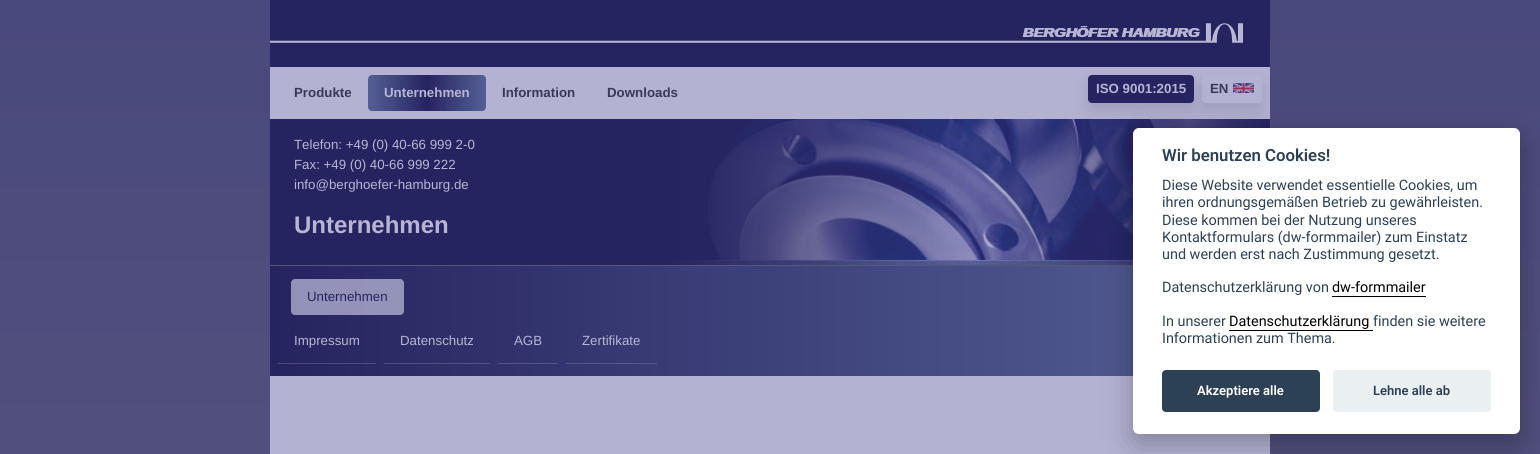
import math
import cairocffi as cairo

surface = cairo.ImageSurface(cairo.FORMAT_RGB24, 1540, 454)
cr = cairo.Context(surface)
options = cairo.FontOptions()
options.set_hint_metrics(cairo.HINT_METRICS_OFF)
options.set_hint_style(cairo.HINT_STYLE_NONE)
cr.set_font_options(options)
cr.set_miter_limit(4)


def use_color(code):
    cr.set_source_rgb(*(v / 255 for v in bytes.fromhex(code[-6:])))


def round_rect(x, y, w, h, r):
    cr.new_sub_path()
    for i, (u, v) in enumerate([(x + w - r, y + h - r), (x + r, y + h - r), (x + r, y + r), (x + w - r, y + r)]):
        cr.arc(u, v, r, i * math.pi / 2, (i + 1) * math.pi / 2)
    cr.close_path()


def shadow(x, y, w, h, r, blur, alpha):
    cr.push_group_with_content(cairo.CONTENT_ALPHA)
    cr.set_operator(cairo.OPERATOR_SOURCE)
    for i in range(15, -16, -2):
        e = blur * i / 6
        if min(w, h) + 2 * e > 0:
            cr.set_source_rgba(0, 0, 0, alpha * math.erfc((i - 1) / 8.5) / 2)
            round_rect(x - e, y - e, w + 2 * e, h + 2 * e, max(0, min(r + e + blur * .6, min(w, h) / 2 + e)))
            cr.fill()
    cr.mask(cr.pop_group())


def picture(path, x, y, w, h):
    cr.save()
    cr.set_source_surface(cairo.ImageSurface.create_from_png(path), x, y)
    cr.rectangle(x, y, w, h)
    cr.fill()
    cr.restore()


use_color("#ffffff")
cr.paint()
gradient = cairo.LinearGradient(770, 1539, 770, 0)
gradient.add_color_stop_rgba(0, 0.376, 0.369, 0.49, 1)
gradient.add_color_stop_rgba(1, 0.29, 0.286, 0.49, 1)
cr.set_source(gradient)
cr.rectangle(0, 0, 1540, 454)
cr.fill()
use_color("#b3b2d2")
cr.rectangle(270, 67, 1000, 52)
cr.fill()
use_color("#262460")
cr.rectangle(270, 0, 1000, 67)
cr.fill()
picture("img1.png", 270, 23, 973, 20)
cr.select_font_face("Liberation Sans", cairo.FONT_SLANT_NORMAL, cairo.FONT_WEIGHT_BOLD)
cr.set_font_size(13.3)
use_color("#39395a")
cr.move_to(294, 97)
cr.show_text("Produkte")
gradient = cairo.LinearGradient(368, 93, 486, 93)
gradient.add_color_stop_rgba(0, 0.333, 0.373, 0.588, 1)
gradient.add_color_stop_rgba(0.5, 0.149, 0.141, 0.376, 1)
gradient.add_color_stop_rgba(1, 0.333, 0.373, 0.588, 1)
cr.set_source(gradient)
round_rect(368, 75, 118, 36, 4)
cr.fill()
use_color("#b7b5d4")
cr.move_to(384, 97)
cr.show_text("Unternehmen")
use_color("#39395a")
cr.move_to(502, 97)
cr.show_text("Information")
cr.move_to(607, 97)
cr.show_text("Downloads")
picture("img3.png", 270, 119, 1000, 146)
use_color("#262443")
shadow(1088, 83, 106, 28, 4, 8, 0.15)
use_color("#262460")
round_rect(1088, 75, 106, 28, 4)
cr.fill()
use_color("#b7b5d4")
cr.move_to(1096, 93)
cr.show_text("ISO 9001:2015")
cr.save()
cr.set_fill_rule(cairo.FILL_RULE_EVEN_ODD)
cr.new_path()
cr.move_to(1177, 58)
cr.line_to(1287, 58)
cr.line_to(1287, 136)
cr.line_to(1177, 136)
cr.close_path()
cr.move_to(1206, 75)
cr.line_to(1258, 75)
cr.curve_to(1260, 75, 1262, 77, 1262, 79)
cr.line_to(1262, 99)
cr.curve_to(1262, 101, 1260, 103, 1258, 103)
cr.line_to(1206, 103)
cr.curve_to(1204, 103, 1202, 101, 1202, 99)
cr.line_to(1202, 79)
cr.curve_to(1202, 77, 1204, 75, 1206, 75)
cr.close_path()
cr.clip()
use_color("#262443")
shadow(1202, 83, 60, 28, 4, 8, 0.15)
cr.restore()
use_color("#39395a")
cr.move_to(1210, 93)
cr.show_text("EN")
picture("img2.png", 1233, 83, 21, 10)
cr.select_font_face("Liberation Sans")
use_color("#b7b5d4")
cr.move_to(294, 149)
cr.show_text("Telefon: +49 (0) 40-66 999 2-0")
cr.move_to(294, 169)
cr.show_text("Fax: +49 (0) 40-66 999 222")
cr.move_to(294, 189)
cr.show_text("info@berghoefer-hamburg.de")
cr.select_font_face("Liberation Sans", cairo.FONT_SLANT_NORMAL, cairo.FONT_WEIGHT_BOLD)
cr.set_font_size(24)
cr.move_to(294, 233)
cr.show_text("Unternehmen")
use_color("#575778")
cr.rectangle(270, 265, 863, 1)
cr.fill()
gradient = cairo.LinearGradient(270, 295, 1270, 294)
gradient.add_color_stop_rgba(0, 0.149, 0.141, 0.376, 1)
gradient.add_color_stop_rgba(1, 0.333, 0.373, 0.588, 1)
cr.set_source(gradient)
cr.rectangle(270, 266, 863, 57)
cr.fill()
cr.set_source_rgba(0.718, 0.71, 0.831, 0.75)
round_rect(291, 279, 113, 36, 4)
cr.fill()
cr.select_font_face("Liberation Sans")
cr.set_font_size(13.3)
use_color("#262460")
cr.move_to(307, 301)
cr.show_text("Unternehmen")
gradient = cairo.LinearGradient(270, 350, 1270, 349)
gradient.add_color_stop_rgba(0, 0.149, 0.141, 0.376, 1)
gradient.add_color_stop_rgba(1, 0.333, 0.373, 0.588, 1)
cr.set_source(gradient)
cr.rectangle(270, 323, 863, 53)
cr.fill()
gradient = cairo.LinearGradient(270, 350, 1270, 349)
gradient.add_color_stop_rgba(0, 0.286, 0.278, 0.49, 1)
gradient.add_color_stop_rgba(1, 0.427, 0.455, 0.647, 1)
cr.set_source(gradient)
cr.rectangle(566, 363, 91, 1)
cr.fill()
cr.rectangle(498, 363, 60, 1)
cr.fill()
cr.rectangle(384, 363, 106, 1)
cr.fill()
cr.rectangle(278, 363, 98, 1)
cr.fill()
use_color("#b7b5d4")
cr.move_to(294, 345)
cr.show_text("Impressum")
cr.move_to(400, 345)
cr.show_text("Datenschutz")
cr.move_to(514, 345)
cr.show_text("AGB")
cr.move_to(582, 345)
cr.show_text("Zertifikate")
use_color("#b3b2d2")
cr.rectangle(270, 376, 1000, 78)
cr.fill()
use_color("#020203")
shadow(1133, 138, 387, 306, 6, 15, 0.28)
use_color("#ffffff")
round_rect(1133, 128, 387, 306, 6)
cr.fill()
cr.select_font_face("Roboto SemiBold")
cr.set_font_size(16.75)
use_color("#2d4156")
cr.move_to(1162, 161)
cr.show_text("Wir benutzen Cookies!")
cr.select_font_face("Roboto")
cr.set_font_size(14.4)
cr.move_to(1162, 190)
cr.show_text("Diese Website verwendet essentielle Cookies, um")
cr.move_to(1162, 207)
cr.show_text("ihren ordnungsgemäßen Betrieb zu gewährleisten.")
cr.move_to(1162, 225)
cr.show_text("Diese kommen bei der Nutzung unseres")
cr.move_to(1162, 242)
cr.show_text("Kontaktformulars (dw-formmailer) zum Einstatz")
cr.move_to(1162, 259)
cr.show_text("und werden erst nach Zustimmung gesetzt.")
cr.move_to(1162, 292)
cr.show_text("Datenschutzerklärung von")
use_color("#000000")
cr.move_to(1332, 292)
cr.show_text("dw-formmailer")
cr.rectangle(1332, 296, 94, 1)
cr.fill()
use_color("#2d4156")
cr.move_to(1162, 326)
cr.show_text("In unserer")
use_color("#000000")
cr.move_to(1229, 326)
cr.show_text("Datenschutzerklärung")
cr.rectangle(1229, 330, 144, 1)
cr.fill()
use_color("#2d4156")
cr.move_to(1373, 326)
cr.show_text("finden sie weitere")
cr.move_to(1162, 343)
cr.show_text("Informationen zum Thema.")
round_rect(1162, 370, 158, 42, 4)
cr.fill()
cr.select_font_face("Roboto SemiBold")
cr.set_font_size(13)
use_color("#ffffff")
cr.move_to(1197, 395)
cr.show_text("Akzeptiere alle")
use_color("#eaeff2")
round_rect(1333, 370, 158, 42, 4)
cr.fill()
use_color("#2d4156")
cr.move_to(1373, 395)
cr.show_text("Lehne alle ab")
surface.write_to_png("result.png")
